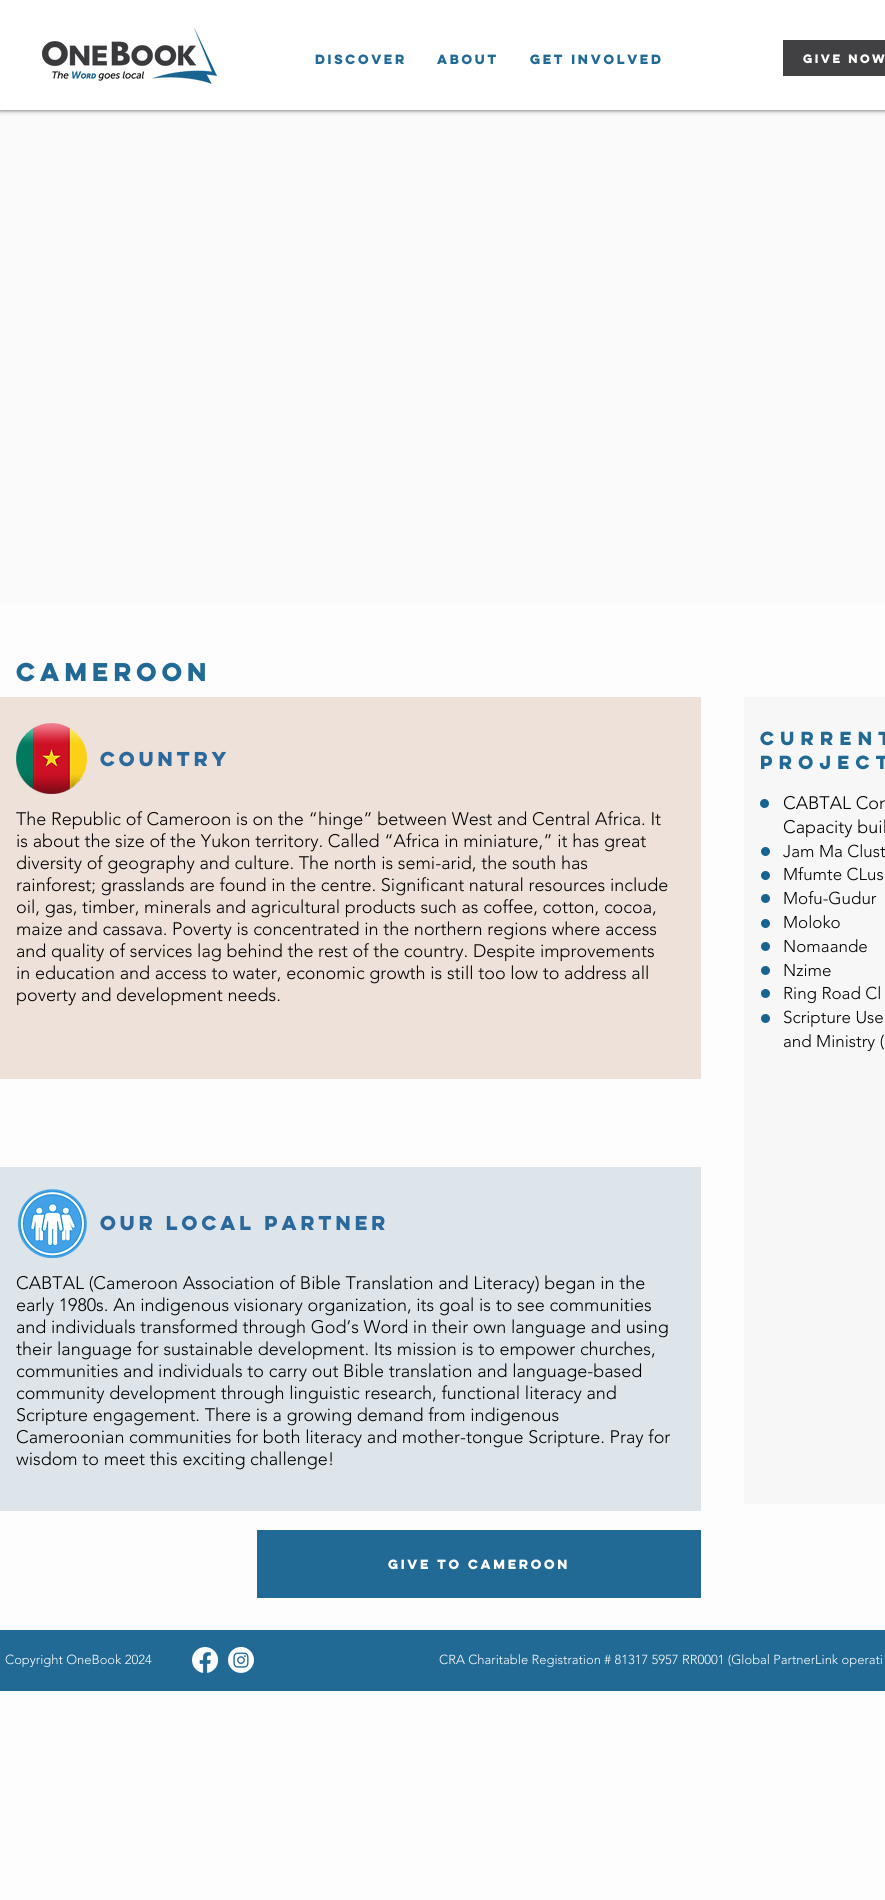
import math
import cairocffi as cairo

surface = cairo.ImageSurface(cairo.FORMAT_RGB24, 885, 1900)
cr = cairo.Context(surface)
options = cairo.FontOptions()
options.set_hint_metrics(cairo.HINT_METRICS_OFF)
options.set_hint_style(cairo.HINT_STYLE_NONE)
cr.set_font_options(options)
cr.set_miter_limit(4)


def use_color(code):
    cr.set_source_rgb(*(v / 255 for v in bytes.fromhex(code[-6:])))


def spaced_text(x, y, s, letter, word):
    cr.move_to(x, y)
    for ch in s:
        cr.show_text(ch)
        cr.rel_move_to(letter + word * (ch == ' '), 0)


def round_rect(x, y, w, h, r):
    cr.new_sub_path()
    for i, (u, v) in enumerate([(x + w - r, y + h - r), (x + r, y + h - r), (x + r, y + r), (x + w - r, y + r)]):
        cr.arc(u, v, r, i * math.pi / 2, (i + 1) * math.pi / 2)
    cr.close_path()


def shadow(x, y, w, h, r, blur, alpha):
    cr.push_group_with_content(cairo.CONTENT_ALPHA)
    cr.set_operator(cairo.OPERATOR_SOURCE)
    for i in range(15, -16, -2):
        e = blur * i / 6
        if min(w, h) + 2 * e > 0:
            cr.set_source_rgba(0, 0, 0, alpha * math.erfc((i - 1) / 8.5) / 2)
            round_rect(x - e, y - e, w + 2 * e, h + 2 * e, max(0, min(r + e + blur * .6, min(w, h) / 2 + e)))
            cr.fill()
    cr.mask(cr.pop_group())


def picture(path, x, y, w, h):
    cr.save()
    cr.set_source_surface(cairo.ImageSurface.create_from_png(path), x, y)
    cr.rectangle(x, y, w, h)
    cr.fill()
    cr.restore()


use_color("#fefdfd")
cr.paint()
use_color("#fafafa")
cr.rectangle(0, 112, 885, 492)
cr.fill()
use_color("#000000")
shadow(0, 0, 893, 110, 0, 2.5, 0.7)
use_color("#ffffff")
cr.rectangle(0, 0, 885, 110)
cr.fill()
picture("img1.png", 42, 28, 175, 56)
cr.select_font_face("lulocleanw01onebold", cairo.FONT_SLANT_NORMAL, cairo.FONT_WEIGHT_BOLD)
cr.set_font_size(12)
use_color("#216a95")
cr.move_to(315, 64)
cr.show_text("Discover")
cr.move_to(437, 64)
cr.show_text("About")
cr.move_to(530, 64)
cr.show_text("Get Involved")
use_color("#414042")
cr.rectangle(783, 40, 102, 36)
cr.fill()
cr.set_font_size(11)
use_color("#ffffff")
cr.move_to(803, 63)
cr.show_text("Give Now")
cr.set_font_size(23)
use_color("#216a95")
cr.move_to(16, 681)
cr.show_text("Cameroon")
use_color("#ede1da")
cr.rectangle(0, 697, 701, 382)
cr.fill()
picture("img2.png", 16, 723, 71, 71)
cr.set_font_size(18)
use_color("#2b689c")
cr.move_to(100, 766)
cr.show_text("Country")
cr.select_font_face("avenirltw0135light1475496 Light")
use_color("#000000")
cr.move_to(16, 825)
cr.show_text("The Republic of Cameroon is on the “hinge” between West and Central Africa. It")
cr.move_to(16, 847)
cr.show_text("is about the size of the Yukon territory. Called “Africa in miniature,” it has great")
cr.move_to(16, 869)
cr.show_text("diversity of geography and culture. The north is semi-arid, the south has")
cr.move_to(16, 891)
cr.show_text("rainforest; grasslands are found in the centre. Significant natural resources include")
cr.move_to(16, 913)
cr.show_text("oil, gas, timber, minerals and agricultural products such as coffee, cotton, cocoa,")
cr.move_to(16, 935)
cr.show_text("maize and cassava. Poverty is concentrated in the northern regions where access")
cr.move_to(16, 957)
cr.show_text("and quality of services lag behind the rest of the country. Despite improvements")
cr.move_to(16, 979)
cr.show_text("in education and access to water, economic growth is still too low to address all")
cr.move_to(16, 1001)
cr.show_text("poverty and development needs.")
use_color("#f8f7f7")
cr.rectangle(744, 697, 141, 807)
cr.fill()
cr.select_font_face("lulocleanw01onebold", cairo.FONT_SLANT_NORMAL, cairo.FONT_WEIGHT_BOLD)
cr.set_font_size(17)
use_color("#216a95")
spaced_text(760, 745, "Current", 2.5, 0)
spaced_text(760, 769, "Project", 2.5, 0)
picture("img3.png", 760, 799, 9, 9)
cr.select_font_face("avenirltw0135light1475496 Light")
cr.set_font_size(18)
use_color("#000000")
cr.move_to(783, 809)
cr.show_text("CABTAL Con")
cr.move_to(783, 833)
cr.show_text("Capacity buil")
cr.set_font_size(17)
cr.move_to(783, 857)
cr.show_text("Jam Ma Clust")
cr.move_to(783, 880)
cr.show_text("Mfumte CLus")
cr.move_to(783, 904)
cr.show_text("Mofu-Gudur")
cr.move_to(783, 928)
cr.show_text("Moloko")
cr.move_to(783, 952)
cr.show_text("Nomaande")
cr.move_to(783, 976)
cr.show_text("Nzime")
cr.move_to(783, 999)
cr.show_text("Ring Road Cl")
cr.move_to(783, 1023)
cr.show_text("Scripture Use")
cr.move_to(783, 1047)
cr.show_text("and Ministry (")
picture("img3.png", 761, 847, 9, 9)
picture("img3.png", 761, 871, 9, 9)
picture("img3.png", 761, 894, 9, 9)
picture("img3.png", 761, 919, 9, 9)
picture("img3.png", 761, 942, 9, 9)
picture("img3.png", 761, 966, 9, 9)
picture("img3.png", 761, 989, 9, 9)
picture("img3.png", 761, 1014, 9, 9)
use_color("#dde5eb")
cr.rectangle(0, 1167, 701, 344)
cr.fill()
picture("img4.png", 17, 1189, 70, 69)
cr.select_font_face("lulocleanw01onebold", cairo.FONT_SLANT_NORMAL, cairo.FONT_WEIGHT_BOLD)
cr.set_font_size(18)
use_color("#2b689c")
cr.move_to(100, 1230)
cr.show_text("Our Local Partner")
cr.select_font_face("avenirltw0135light1475496 Light")
use_color("#000000")
cr.move_to(16, 1289)
cr.show_text("CABTAL (Cameroon Association of Bible Translation and Literacy) began in the")
cr.move_to(16, 1311)
cr.show_text("early 1980s. An indigenous visionary organization, its goal is to see communities")
cr.move_to(16, 1333)
cr.show_text("and individuals transformed through God’s Word in their own language and using")
cr.move_to(16, 1355)
cr.show_text("their language for sustainable development. Its mission is to empower churches,")
cr.move_to(16, 1377)
cr.show_text("communities and individuals to carry out Bible translation and language-based")
cr.move_to(16, 1399)
cr.show_text("community development through linguistic research, functional literacy and")
cr.move_to(16, 1421)
cr.show_text("Scripture engagement. There is a growing demand from indigenous")
cr.move_to(16, 1443)
cr.show_text("Cameroonian communities for both literacy and mother-tongue Scripture. Pray for")
cr.move_to(16, 1465)
cr.show_text("wisdom to meet this exciting challenge!")
use_color("#216a95")
cr.rectangle(257, 1530, 444, 68)
cr.fill()
cr.select_font_face("lulocleanw01onebold", cairo.FONT_SLANT_NORMAL, cairo.FONT_WEIGHT_BOLD)
cr.set_font_size(12)
use_color("#ffffff")
cr.move_to(388, 1569)
cr.show_text("Give to Cameroon")
use_color("#216a95")
cr.rectangle(0, 1630, 885, 61)
cr.fill()
cr.select_font_face("avenirltw0135light1475496 Light")
cr.set_font_size(13)
use_color("#ffffff")
cr.move_to(5, 1664)
cr.show_text("Copyright OneBook 2024                                                                                     CRA Charitable Registration # 81317 5957 RR0001 (Global PartnerLink operati")
picture("img5.png", 192, 1647, 26, 26)
picture("img6.png", 228, 1647, 26, 26)
surface.write_to_png("result.png")
